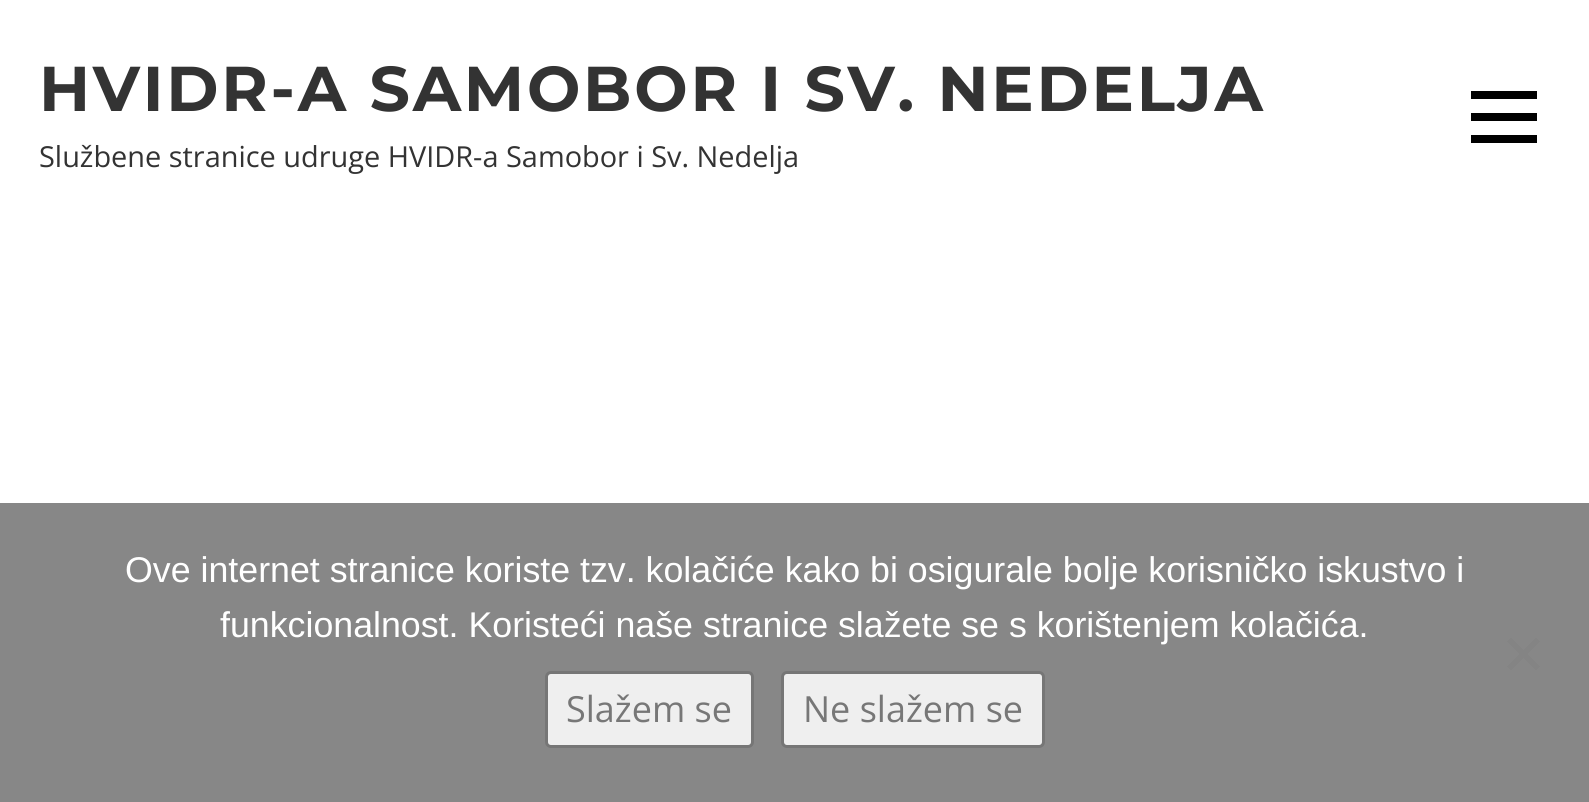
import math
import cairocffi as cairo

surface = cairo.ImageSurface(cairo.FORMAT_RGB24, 1589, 802)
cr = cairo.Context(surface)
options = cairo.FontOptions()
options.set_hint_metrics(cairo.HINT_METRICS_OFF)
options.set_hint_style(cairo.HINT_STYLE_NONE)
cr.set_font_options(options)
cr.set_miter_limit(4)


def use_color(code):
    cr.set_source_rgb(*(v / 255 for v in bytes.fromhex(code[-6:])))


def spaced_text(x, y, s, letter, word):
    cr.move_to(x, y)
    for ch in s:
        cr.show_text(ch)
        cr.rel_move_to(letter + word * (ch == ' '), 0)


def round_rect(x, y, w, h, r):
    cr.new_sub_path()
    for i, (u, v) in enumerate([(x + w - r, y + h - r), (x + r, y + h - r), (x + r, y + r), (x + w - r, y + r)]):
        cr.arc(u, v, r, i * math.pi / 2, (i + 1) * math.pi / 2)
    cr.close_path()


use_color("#ffffff")
cr.paint()
cr.select_font_face("Montserrat", cairo.FONT_SLANT_NORMAL, cairo.FONT_WEIGHT_BOLD)
cr.set_font_size(63.25)
use_color("#333333")
spaced_text(39, 111, "HVIDR-A SAMOBOR I SV. NEDELJA", 2.75, 0)
cr.select_font_face("Open Sans")
cr.set_font_size(28.9)
cr.move_to(39, 167)
cr.show_text("Službene stranice udruge HVIDR-a Samobor i Sv. Nedelja")
use_color("#000000")
cr.rectangle(1471, 113, 66, 8)
cr.fill()
cr.rectangle(1471, 91, 66, 8)
cr.fill()
cr.rectangle(1471, 135, 66, 8)
cr.fill()
use_color("#878787")
cr.rectangle(0, 503, 1589, 299)
cr.fill()
cr.select_font_face("Liberation Sans")
cr.set_font_size(35.75)
use_color("#ffffff")
cr.move_to(125, 582)
cr.show_text("Ove internet stranice koriste tzv. kolačiće kako bi osigurale bolje korisničko iskustvo i")
cr.move_to(220, 637)
cr.show_text("funkcionalnost. Koristeći naše stranice slažete se s korištenjem kolačića.")
use_color("#848484")
cr.new_path()
cr.move_to(1536, 637.5)
cr.line_to(1540, 641.5)
cr.line_to(1511, 670.5)
cr.line_to(1507, 666.5)
cr.close_path()
cr.fill()
cr.new_path()
cr.move_to(1507, 641.5)
cr.line_to(1511, 637.5)
cr.line_to(1540, 666.5)
cr.line_to(1536, 670.5)
cr.close_path()
cr.fill()
use_color("#efefef")
round_rect(546.5, 672.5, 206, 74, 4.5)
cr.fill_preserve()
use_color("#767676")
cr.set_line_width(3)
cr.stroke()
cr.select_font_face("Open Sans")
cr.set_font_size(36)
use_color("#777777")
cr.move_to(566, 722)
cr.show_text("Slažem se")
use_color("#efefef")
round_rect(782.5, 672.5, 261, 74, 4.5)
cr.fill_preserve()
use_color("#767676")
cr.stroke()
use_color("#777777")
cr.move_to(803, 722)
cr.show_text("Ne slažem se")
surface.write_to_png("result.png")
